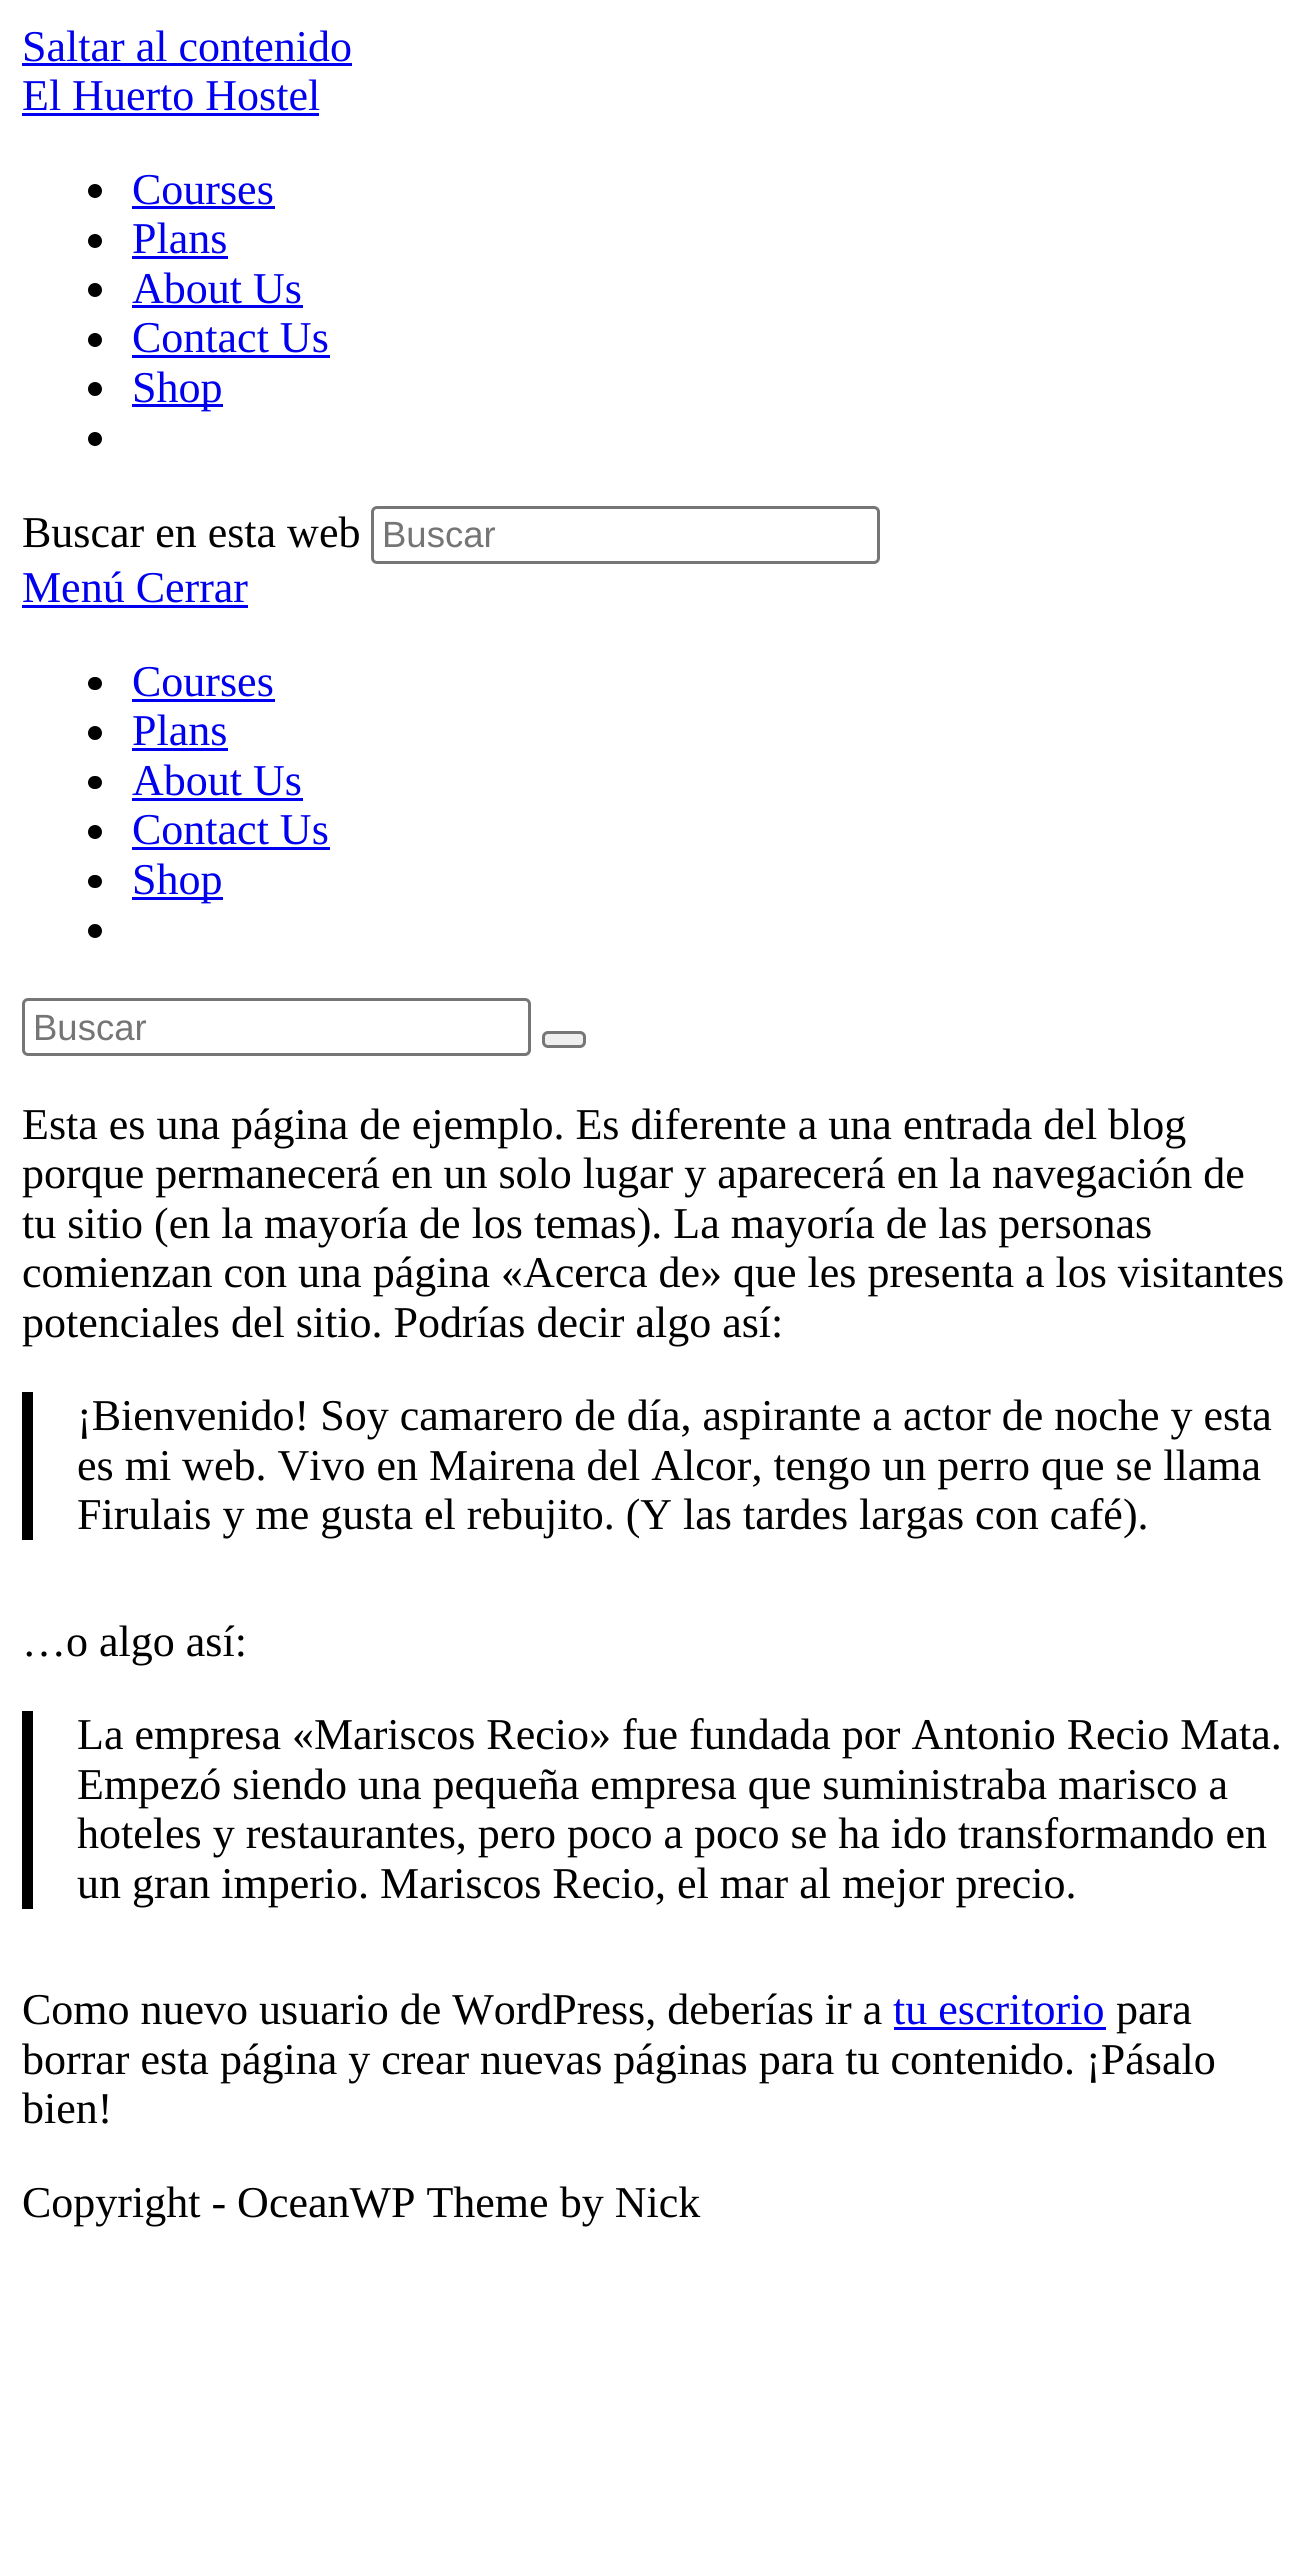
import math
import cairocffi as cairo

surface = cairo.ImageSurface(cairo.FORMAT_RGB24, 1305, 2549)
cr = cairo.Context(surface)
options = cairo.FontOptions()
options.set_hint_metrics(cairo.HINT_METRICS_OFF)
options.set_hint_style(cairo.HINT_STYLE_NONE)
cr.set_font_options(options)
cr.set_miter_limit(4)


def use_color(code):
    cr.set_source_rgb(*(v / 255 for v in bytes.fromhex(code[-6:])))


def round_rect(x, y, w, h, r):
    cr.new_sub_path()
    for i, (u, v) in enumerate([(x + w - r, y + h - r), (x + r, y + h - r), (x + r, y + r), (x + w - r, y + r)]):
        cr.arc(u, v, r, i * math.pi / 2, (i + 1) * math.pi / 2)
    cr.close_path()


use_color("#ffffff")
cr.paint()
cr.select_font_face("Liberation Serif")
cr.set_font_size(44)
use_color("#0000ee")
cr.move_to(22, 61)
cr.show_text("Saltar al contenido")
cr.rectangle(22, 63, 330, 3)
cr.fill()
cr.move_to(22, 110)
cr.show_text("El Huerto Hostel")
cr.rectangle(22, 113, 297, 3)
cr.fill()
use_color("#000000")
cr.arc(95, 191, 7, 0, 2 * math.pi)
cr.fill()
use_color("#0000ee")
cr.move_to(132, 204)
cr.show_text("Courses")
cr.rectangle(132, 206, 143, 3)
cr.fill()
use_color("#000000")
cr.arc(95, 241, 7, 0, 2 * math.pi)
cr.fill()
use_color("#0000ee")
cr.move_to(132, 253)
cr.show_text("Plans")
cr.rectangle(132, 256, 96, 3)
cr.fill()
use_color("#000000")
cr.arc(95, 290, 7, 0, 2 * math.pi)
cr.fill()
use_color("#0000ee")
cr.move_to(132, 303)
cr.show_text("About Us")
cr.rectangle(132, 305, 171, 3)
cr.fill()
use_color("#000000")
cr.arc(95, 340, 7, 0, 2 * math.pi)
cr.fill()
use_color("#0000ee")
cr.move_to(132, 352)
cr.show_text("Contact Us")
cr.rectangle(132, 355, 198, 3)
cr.fill()
use_color("#000000")
cr.arc(95, 389, 7, 0, 2 * math.pi)
cr.fill()
use_color("#0000ee")
cr.rectangle(132, 404, 91, 3)
cr.fill()
cr.move_to(132, 402)
cr.show_text("Shop")
use_color("#000000")
cr.new_path()
cr.arc(95, 439, 7, 0, 2 * math.pi)
cr.fill()
cr.move_to(22, 547)
cr.show_text("Buscar en esta web")
round_rect(372.5, 507.5, 506, 55, 4.5)
use_color("#767676")
cr.set_line_width(3)
cr.stroke()
cr.select_font_face("Liberation Sans")
cr.set_font_size(36.5)
use_color("#757575")
cr.move_to(382, 547)
cr.show_text("Buscar")
cr.select_font_face("Liberation Serif")
cr.set_font_size(44)
use_color("#0000ee")
cr.move_to(22, 602)
cr.show_text("Menú Cerrar")
cr.rectangle(22, 605, 226, 3)
cr.fill()
use_color("#000000")
round_rect(88, 677, 14, 13, 6.5)
cr.fill()
use_color("#0000ee")
cr.move_to(132, 696)
cr.show_text("Courses")
cr.rectangle(132, 699, 143, 3)
cr.fill()
use_color("#000000")
cr.arc(95, 733, 7, 0, 2 * math.pi)
cr.fill()
use_color("#0000ee")
cr.move_to(132, 745)
cr.show_text("Plans")
cr.rectangle(132, 748, 96, 3)
cr.fill()
use_color("#000000")
round_rect(88, 776, 14, 13, 6.5)
cr.fill()
use_color("#0000ee")
cr.move_to(132, 795)
cr.show_text("About Us")
cr.rectangle(132, 798, 171, 3)
cr.fill()
use_color("#000000")
cr.arc(95, 832, 7, 0, 2 * math.pi)
cr.fill()
use_color("#0000ee")
cr.move_to(132, 844)
cr.show_text("Contact Us")
cr.rectangle(132, 847, 198, 3)
cr.fill()
use_color("#000000")
round_rect(88, 875, 14, 13, 6.5)
cr.fill()
use_color("#0000ee")
cr.rectangle(132, 897, 91, 3)
cr.fill()
cr.move_to(132, 894)
cr.show_text("Shop")
use_color("#000000")
cr.new_path()
cr.arc(95, 931, 7, 0, 2 * math.pi)
cr.fill()
round_rect(23.5, 999.5, 506, 55, 4.5)
use_color("#767676")
cr.stroke()
cr.select_font_face("Liberation Sans")
cr.set_font_size(36.5)
use_color("#757575")
cr.move_to(33, 1040)
cr.show_text("Buscar")
use_color("#efefef")
round_rect(543.5, 1032.5, 41, 14, 4.5)
cr.fill_preserve()
use_color("#767676")
cr.stroke()
cr.select_font_face("Liberation Serif")
cr.set_font_size(44)
use_color("#000000")
cr.move_to(22, 1139)
cr.show_text("Esta es una página de ejemplo. Es diferente a una entrada del blog")
cr.move_to(22, 1188)
cr.show_text("porque permanecerá en un solo lugar y aparecerá en la navegación de")
cr.move_to(22, 1238)
cr.show_text("tu sitio (en la mayoría de los temas). La mayoría de las personas")
cr.move_to(22, 1287)
cr.show_text("comienzan con una página «Acerca de» que les presenta a los visitantes")
cr.move_to(22, 1337)
cr.show_text("potenciales del sitio. Podrías decir algo así:")
cr.rectangle(22, 1392, 11, 148)
cr.fill()
cr.move_to(77, 1430)
cr.show_text("¡Bienvenido! Soy camarero de día, aspirante a actor de noche y esta")
cr.move_to(77, 1480)
cr.show_text("es mi web. Vivo en Mairena del Alcor, tengo un perro que se llama")
cr.move_to(77, 1529)
cr.show_text("Firulais y me gusta el rebujito. (Y las tardes largas con café).")
cr.move_to(22, 1656)
cr.show_text("…o algo así:")
cr.rectangle(22, 1711, 11, 198)
cr.fill()
cr.move_to(77, 1749)
cr.show_text("La empresa «Mariscos Recio» fue fundada por Antonio Recio Mata.")
cr.move_to(77, 1799)
cr.show_text("Empezó siendo una pequeña empresa que suministraba marisco a")
cr.move_to(77, 1848)
cr.show_text("hoteles y restaurantes, pero poco a poco se ha ido transformando en")
cr.move_to(77, 1898)
cr.show_text("un gran imperio. Mariscos Recio, el mar al mejor precio.")
cr.move_to(22, 2024)
cr.show_text("Como nuevo usuario de WordPress, deberías ir a")
use_color("#0000ee")
cr.move_to(893, 2024)
cr.show_text("tu escritorio")
cr.rectangle(894, 2027, 212, 3)
cr.fill()
use_color("#000000")
cr.move_to(1116, 2024)
cr.show_text("para")
cr.move_to(22, 2074)
cr.show_text("borrar esta página y crear nuevas páginas para tu contenido. ¡Pásalo")
cr.move_to(22, 2123)
cr.show_text("bien!")
cr.move_to(22, 2217)
cr.show_text("Copyright - OceanWP Theme by Nick")
surface.write_to_png("result.png")
